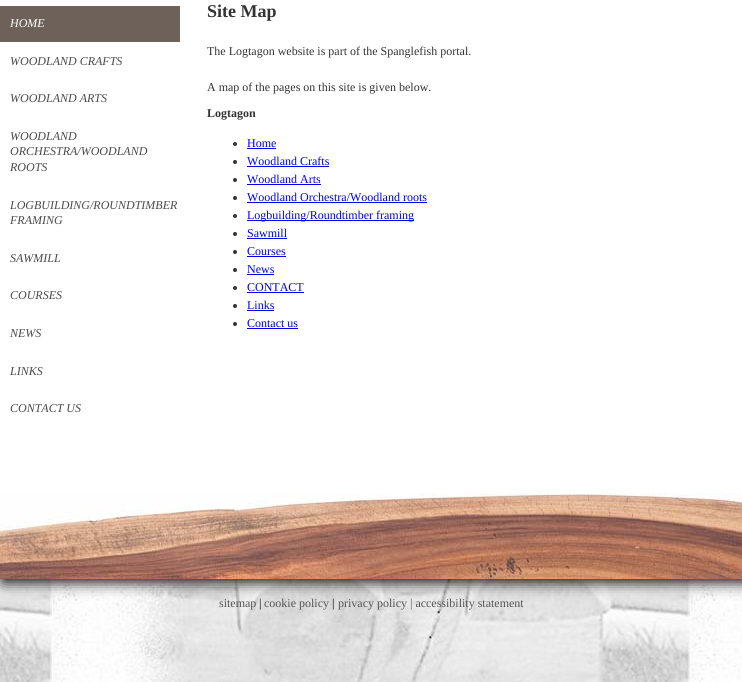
import math
import cairocffi as cairo

surface = cairo.ImageSurface(cairo.FORMAT_RGB24, 742, 682)
cr = cairo.Context(surface)
options = cairo.FontOptions()
options.set_hint_metrics(cairo.HINT_METRICS_OFF)
options.set_hint_style(cairo.HINT_STYLE_NONE)
cr.set_font_options(options)
cr.set_miter_limit(4)


def use_color(code):
    cr.set_source_rgb(*(v / 255 for v in bytes.fromhex(code[-6:])))


def round_rect(x, y, w, h, r):
    cr.new_sub_path()
    for i, (u, v) in enumerate([(x + w - r, y + h - r), (x + r, y + h - r), (x + r, y + r), (x + w - r, y + r)]):
        cr.arc(u, v, r, i * math.pi / 2, (i + 1) * math.pi / 2)
    cr.close_path()


def shadow(x, y, w, h, r, blur, alpha):
    cr.push_group_with_content(cairo.CONTENT_ALPHA)
    cr.set_operator(cairo.OPERATOR_SOURCE)
    for i in range(15, -16, -2):
        e = blur * i / 6
        if min(w, h) + 2 * e > 0:
            cr.set_source_rgba(0, 0, 0, alpha * math.erfc((i - 1) / 8.5) / 2)
            round_rect(x - e, y - e, w + 2 * e, h + 2 * e, max(0, min(r + e + blur * .6, min(w, h) / 2 + e)))
            cr.fill()
    cr.mask(cr.pop_group())


def picture(path, x, y, w, h):
    cr.save()
    cr.set_source_surface(cairo.ImageSurface.create_from_png(path), x, y)
    cr.rectangle(x, y, w, h)
    cr.fill()
    cr.restore()


use_color("#ffffff")
cr.paint()
picture("img1.png", 0, 579, 742, 103)
use_color("#000000")
shadow(3, -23, 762, 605, 0, 7.5, 1)
use_color("#ffffff")
cr.rectangle(0, 0, 742, 493)
cr.fill()
use_color("#6d615a")
cr.rectangle(0, 6, 180, 36)
cr.fill()
cr.select_font_face("Liberation Serif", cairo.FONT_SLANT_ITALIC)
cr.set_font_size(12)
use_color("#ffffff")
cr.move_to(10, 27)
cr.show_text("HOME")
use_color("#4a4a4a")
cr.move_to(10, 65)
cr.show_text("WOODLAND CRAFTS")
cr.move_to(10, 102)
cr.show_text("WOODLAND ARTS")
cr.move_to(10, 140)
cr.show_text("WOODLAND")
cr.move_to(10, 155)
cr.show_text("ORCHESTRA/WOODLAND")
cr.move_to(10, 171)
cr.show_text("ROOTS")
cr.move_to(10, 209)
cr.show_text("LOGBUILDING/ROUNDTIMBER")
cr.move_to(10, 224)
cr.show_text("FRAMING")
cr.move_to(10, 262)
cr.show_text("SAWMILL")
cr.move_to(10, 299)
cr.show_text("COURSES")
cr.move_to(10, 337)
cr.show_text("NEWS")
cr.move_to(10, 375)
cr.show_text("LINKS")
cr.move_to(10, 412)
cr.show_text("CONTACT US")
cr.select_font_face("Liberation Serif", cairo.FONT_SLANT_NORMAL, cairo.FONT_WEIGHT_BOLD)
cr.set_font_size(18)
use_color("#333333")
cr.move_to(207, 17)
cr.show_text("Site Map")
cr.select_font_face("Liberation Serif")
cr.set_font_size(12)
cr.move_to(207, 55)
cr.show_text("The Logtagon website is part of the Spanglefish portal.")
cr.move_to(207, 91)
cr.show_text("A map of the pages on this site is given below.")
cr.select_font_face("Liberation Serif", cairo.FONT_SLANT_NORMAL, cairo.FONT_WEIGHT_BOLD)
cr.move_to(207, 117)
cr.show_text("Logtagon")
cr.new_path()
cr.arc(235, 144, 2, 0, 2 * math.pi)
cr.fill()
cr.select_font_face("Liberation Serif")
use_color("#0000ee")
cr.move_to(247, 147)
cr.show_text("Home")
cr.rectangle(247, 148, 29, 1)
cr.fill()
use_color("#333333")
cr.arc(235, 162, 2, 0, 2 * math.pi)
cr.fill()
use_color("#0000ee")
cr.move_to(247, 165)
cr.show_text("Woodland Crafts")
cr.rectangle(247, 166, 82, 1)
cr.fill()
use_color("#333333")
cr.arc(235, 180, 2, 0, 2 * math.pi)
cr.fill()
use_color("#0000ee")
cr.move_to(247, 183)
cr.show_text("Woodland Arts")
cr.rectangle(247, 184, 74, 1)
cr.fill()
use_color("#333333")
cr.arc(235, 198, 2, 0, 2 * math.pi)
cr.fill()
use_color("#0000ee")
cr.move_to(247, 201)
cr.show_text("Woodland Orchestra/Woodland roots")
cr.rectangle(247, 202, 180, 1)
cr.fill()
use_color("#333333")
cr.arc(235, 216, 2, 0, 2 * math.pi)
cr.fill()
use_color("#0000ee")
cr.rectangle(247, 220, 167, 1)
cr.fill()
cr.move_to(247, 219)
cr.show_text("Logbuilding/Roundtimber framing")
use_color("#333333")
cr.new_path()
cr.arc(235, 234, 2, 0, 2 * math.pi)
cr.fill()
use_color("#0000ee")
cr.move_to(247, 237)
cr.show_text("Sawmill")
cr.rectangle(247, 238, 40, 1)
cr.fill()
use_color("#333333")
cr.arc(235, 252, 2, 0, 2 * math.pi)
cr.fill()
use_color("#0000ee")
cr.move_to(247, 255)
cr.show_text("Courses")
cr.rectangle(247, 256, 39, 1)
cr.fill()
use_color("#333333")
cr.arc(235, 270, 2, 0, 2 * math.pi)
cr.fill()
use_color("#0000ee")
cr.move_to(247, 273)
cr.show_text("News")
cr.rectangle(247, 274, 27, 1)
cr.fill()
use_color("#333333")
cr.arc(235, 288, 2, 0, 2 * math.pi)
cr.fill()
use_color("#0000ee")
cr.move_to(247, 291)
cr.show_text("CONTACT")
cr.rectangle(247, 292, 57, 1)
cr.fill()
use_color("#333333")
cr.arc(235, 306, 2, 0, 2 * math.pi)
cr.fill()
use_color("#0000ee")
cr.move_to(247, 309)
cr.show_text("Links")
cr.rectangle(247, 310, 27, 1)
cr.fill()
use_color("#333333")
cr.arc(235, 324, 2, 0, 2 * math.pi)
cr.fill()
use_color("#0000ee")
cr.move_to(247, 327)
cr.show_text("Contact us")
cr.rectangle(247, 328, 51, 1)
cr.fill()
picture("img2.png", 0, 493, 742, 86)
use_color("#555555")
cr.move_to(219, 607)
cr.show_text("sitemap")
use_color("#000000")
cr.move_to(259, 607)
cr.show_text("|")
use_color("#555555")
cr.move_to(264, 607)
cr.show_text("cookie policy")
use_color("#000000")
cr.move_to(332, 607)
cr.show_text("|")
use_color("#555555")
cr.move_to(338, 607)
cr.show_text("privacy policy | accessibility statement")
surface.write_to_png("result.png")
